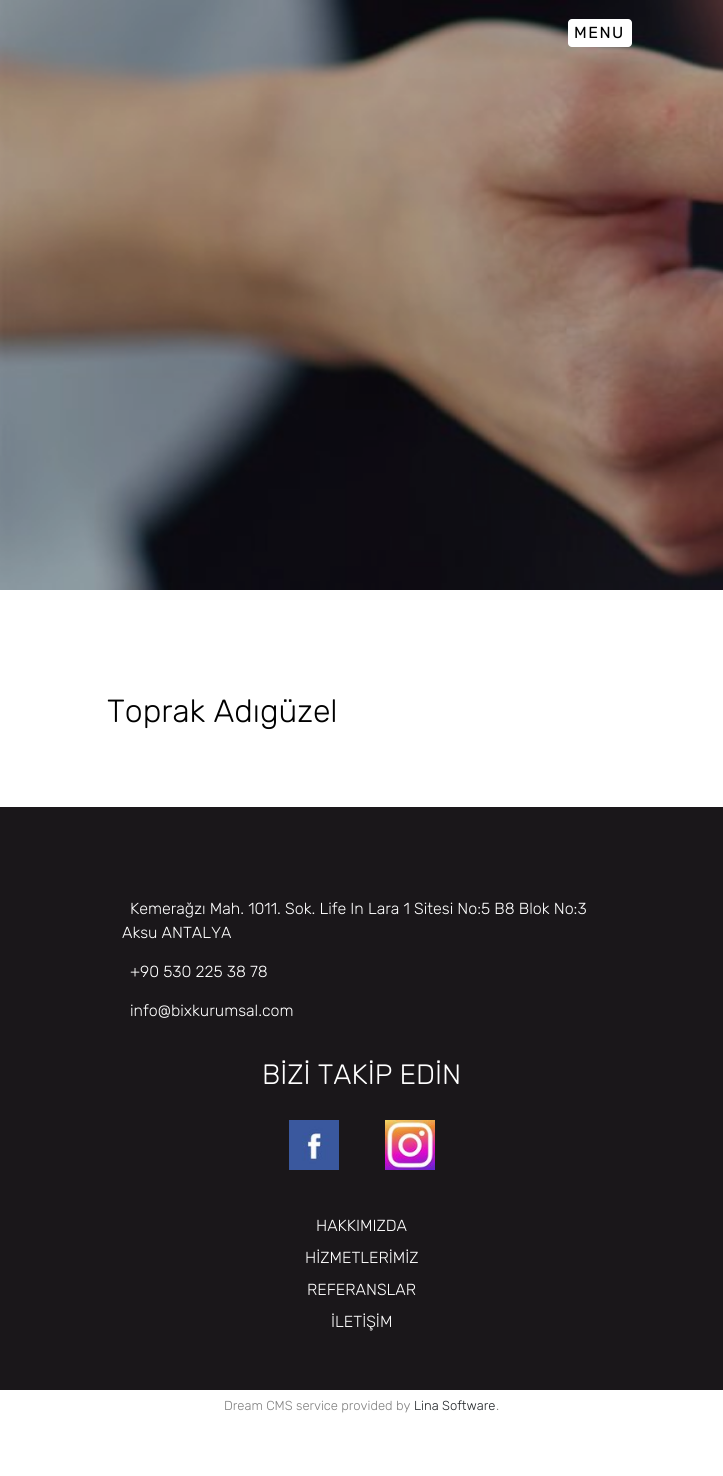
import math
import cairocffi as cairo

surface = cairo.ImageSurface(cairo.FORMAT_RGB24, 723, 1476)
cr = cairo.Context(surface)
options = cairo.FontOptions()
options.set_hint_metrics(cairo.HINT_METRICS_OFF)
options.set_hint_style(cairo.HINT_STYLE_NONE)
cr.set_font_options(options)
cr.set_miter_limit(4)


def use_color(code):
    cr.set_source_rgb(*(v / 255 for v in bytes.fromhex(code[-6:])))


def spaced_text(x, y, s, letter, word):
    cr.move_to(x, y)
    for ch in s:
        cr.show_text(ch)
        cr.rel_move_to(letter + word * (ch == ' '), 0)


def round_rect(x, y, w, h, r):
    cr.new_sub_path()
    for i, (u, v) in enumerate([(x + w - r, y + h - r), (x + r, y + h - r), (x + r, y + r), (x + w - r, y + r)]):
        cr.arc(u, v, r, i * math.pi / 2, (i + 1) * math.pi / 2)
    cr.close_path()


def picture(path, x, y, w, h):
    cr.save()
    cr.set_source_surface(cairo.ImageSurface.create_from_png(path), x, y)
    cr.rectangle(x, y, w, h)
    cr.fill()
    cr.restore()


use_color("#ffffff")
cr.paint()
picture("img1.png", 0, 0, 723, 590)
use_color("#ffffff")
round_rect(568, 19, 64, 28, 4)
cr.fill()
cr.select_font_face("Rubik")
cr.set_font_size(16)
use_color("#000000")
spaced_text(574, 38, "MENU", 1.5, 0)
cr.select_font_face("Rubik Light")
cr.set_font_size(32)
cr.move_to(107, 722)
cr.show_text("Toprak Adıgüzel")
use_color("#1a171a")
cr.rectangle(0, 807, 723, 583)
cr.fill()
cr.set_font_size(16)
use_color("#ffffff")
cr.move_to(130, 914)
cr.show_text("Kemerağzı Mah. 1011. Sok. Life In Lara 1 Sitesi No:5 B8 Blok No:3")
cr.move_to(122, 938)
cr.show_text("Aksu ANTALYA")
cr.move_to(130, 977)
cr.show_text("+90 530 225 38 78")
cr.move_to(130, 1016)
cr.show_text("info@bixkurumsal.com")
cr.set_font_size(28)
cr.move_to(262, 1084)
cr.show_text("BİZİ TAKİP EDİN")
picture("img2.png", 289, 1120, 50, 50)
picture("img3.png", 385, 1120, 50, 50)
cr.set_font_size(16)
cr.move_to(316, 1231)
cr.show_text("HAKKIMIZDA")
cr.move_to(305, 1263)
cr.show_text("HİZMETLERİMİZ")
cr.move_to(307, 1295)
cr.show_text("REFERANSLAR")
cr.move_to(331, 1327)
cr.show_text("İLETİŞİM")
cr.set_font_size(13)
use_color("#808080")
cr.move_to(224, 1410)
cr.show_text("Dream CMS service provided by")
use_color("#212529")
cr.move_to(414, 1410)
cr.show_text("Lina Software")
use_color("#808080")
cr.move_to(496, 1410)
cr.show_text(".")
surface.write_to_png("result.png")
